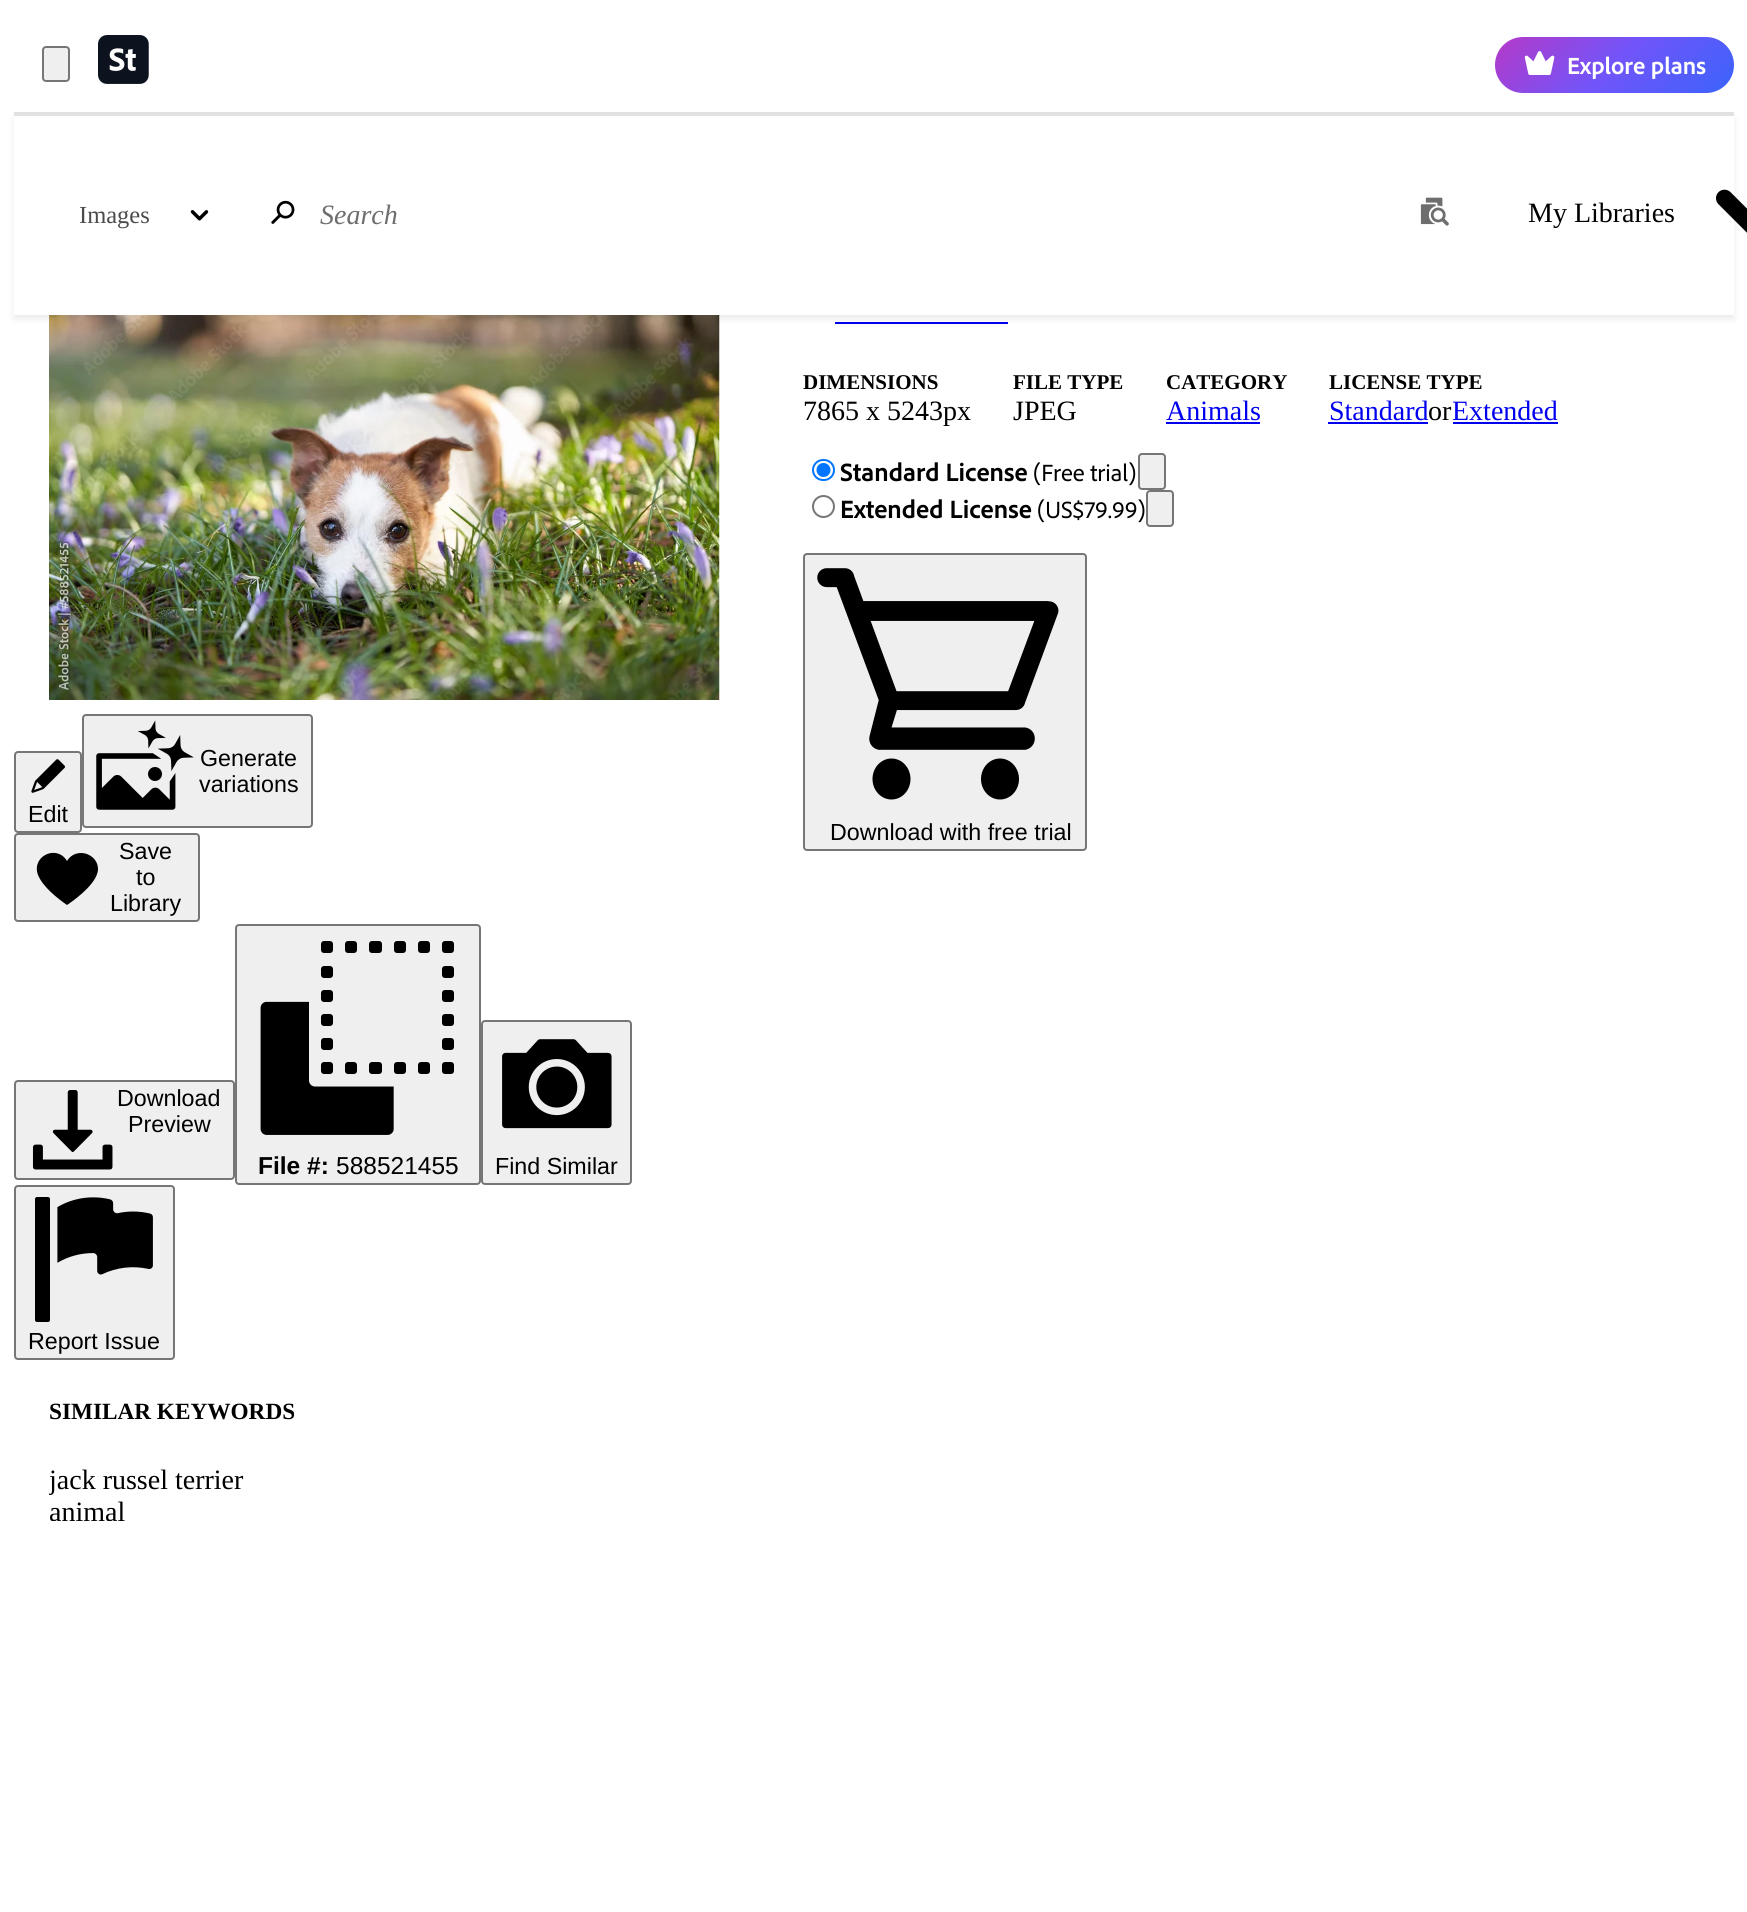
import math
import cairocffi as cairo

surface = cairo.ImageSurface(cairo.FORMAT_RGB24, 1747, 1912)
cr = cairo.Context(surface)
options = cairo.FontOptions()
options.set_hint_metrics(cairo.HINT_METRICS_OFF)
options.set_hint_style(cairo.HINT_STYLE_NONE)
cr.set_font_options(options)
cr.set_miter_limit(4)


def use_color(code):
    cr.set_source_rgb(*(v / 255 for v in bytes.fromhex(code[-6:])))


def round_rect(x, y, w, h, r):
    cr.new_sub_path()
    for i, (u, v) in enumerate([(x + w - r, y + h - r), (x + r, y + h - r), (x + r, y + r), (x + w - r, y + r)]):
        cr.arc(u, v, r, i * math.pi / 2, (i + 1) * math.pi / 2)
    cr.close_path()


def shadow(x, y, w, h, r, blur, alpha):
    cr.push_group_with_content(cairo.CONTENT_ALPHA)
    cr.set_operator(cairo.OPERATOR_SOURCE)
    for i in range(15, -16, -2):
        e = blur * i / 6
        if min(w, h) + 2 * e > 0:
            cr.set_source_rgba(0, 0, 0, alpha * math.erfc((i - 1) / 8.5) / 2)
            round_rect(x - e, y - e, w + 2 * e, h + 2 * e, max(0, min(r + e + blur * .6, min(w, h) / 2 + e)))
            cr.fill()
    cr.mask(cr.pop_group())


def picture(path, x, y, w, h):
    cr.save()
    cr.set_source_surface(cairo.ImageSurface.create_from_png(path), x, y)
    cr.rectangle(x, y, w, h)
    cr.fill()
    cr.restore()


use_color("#ffffff")
cr.paint()
use_color("#0000ee")
cr.rectangle(835, 322, 173, 2)
cr.fill()
picture("img8.png", 49, 315, 671, 385)
use_color("#343434")
shadow(14, 119, 1720, 200, 0, 3.5, 0.1)
use_color("#e1e1e1")
cr.rectangle(14, 112, 1720, 4)
cr.fill()
use_color("#efefef")
round_rect(43, 47, 26, 34, 3)
cr.fill_preserve()
use_color("#767676")
cr.stroke()
picture("img1.png", 98, 35, 51, 49)
gradient = cairo.LinearGradient(1540, -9, 1688, 139)
gradient.add_color_stop_rgba(0, 0.71, 0.224, 0.784, 1)
gradient.add_color_stop_rgba(0.5, 0.443, 0.333, 0.98, 1)
gradient.add_color_stop_rgba(1, 0.231, 0.388, 0.984, 1)
cr.set_source(gradient)
round_rect(1495, 37, 239, 56, 28)
cr.fill()
picture("img2.png", 1524, 51, 31, 24)
cr.select_font_face("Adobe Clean", cairo.FONT_SLANT_NORMAL, cairo.FONT_WEIGHT_BOLD)
cr.set_font_size(24.5)
use_color("#ffffff")
cr.move_to(1567, 74)
cr.show_text("Explore plans")
cr.rectangle(14, 116, 1720, 199)
cr.fill()
cr.select_font_face("Liberation Serif")
use_color("#4b4b4b")
cr.move_to(79, 223)
cr.show_text("Images")
picture("img3.png", 190, 210, 19, 11)
picture("img4.png", 271, 200, 24, 24)
cr.select_font_face("Liberation Serif", cairo.FONT_SLANT_ITALIC)
cr.set_font_size(28)
use_color("#6e6e6e")
cr.move_to(320, 224)
cr.show_text("Search")
picture("img5.png", 1420, 197, 29, 29)
cr.select_font_face("Liberation Serif")
use_color("#000000")
cr.move_to(1528, 222)
cr.show_text("My Libraries")
picture("img6.png", 1716, 189, 31, 44)
cr.select_font_face("Liberation Serif", cairo.FONT_SLANT_NORMAL, cairo.FONT_WEIGHT_BOLD)
cr.set_font_size(21)
cr.move_to(803, 389)
cr.show_text("DIMENSIONS")
cr.select_font_face("Liberation Serif")
cr.set_font_size(28)
cr.move_to(803, 420)
cr.show_text("7865 x 5243px")
cr.select_font_face("Liberation Serif", cairo.FONT_SLANT_NORMAL, cairo.FONT_WEIGHT_BOLD)
cr.set_font_size(21)
cr.move_to(1013, 389)
cr.show_text("FILE TYPE")
cr.select_font_face("Liberation Serif")
cr.set_font_size(28)
cr.move_to(1013, 420)
cr.show_text("JPEG")
cr.select_font_face("Liberation Serif", cairo.FONT_SLANT_NORMAL, cairo.FONT_WEIGHT_BOLD)
cr.set_font_size(21)
cr.move_to(1166, 389)
cr.show_text("CATEGORY")
cr.select_font_face("Liberation Serif")
cr.set_font_size(28)
use_color("#0000ee")
cr.move_to(1166, 420)
cr.show_text("Animals")
cr.rectangle(1166, 422, 94, 2)
cr.fill()
cr.select_font_face("Liberation Serif", cairo.FONT_SLANT_NORMAL, cairo.FONT_WEIGHT_BOLD)
cr.set_font_size(21)
use_color("#000000")
cr.move_to(1329, 389)
cr.show_text("LICENSE TYPE")
cr.select_font_face("Liberation Serif")
cr.set_font_size(28)
use_color("#0000ee")
cr.move_to(1329, 420)
cr.show_text("Standard")
use_color("#000000")
cr.move_to(1428, 420)
cr.show_text("or")
use_color("#0000ee")
cr.rectangle(1328, 422, 100, 2)
cr.fill()
cr.rectangle(1453, 422, 105, 2)
cr.fill()
cr.move_to(1452, 420)
cr.show_text("Extended")
round_rect(813, 460, 21, 20, 10)
use_color("#0075ff")
cr.stroke()
cr.arc(823.5, 470, 7, 0, 2 * math.pi)
cr.fill()
cr.select_font_face("Adobe Clean", cairo.FONT_SLANT_NORMAL, cairo.FONT_WEIGHT_BOLD)
cr.set_font_size(26.25)
use_color("#000000")
cr.move_to(840, 481)
cr.show_text("Standard License")
cr.select_font_face("Adobe Clean")
cr.set_font_size(24.5)
cr.move_to(1033, 481)
cr.show_text("(Free trial)")
use_color("#efefef")
round_rect(1139, 454, 26, 35, 3)
cr.fill_preserve()
use_color("#767676")
cr.stroke()
cr.arc(823.5, 506.5, 10.5, 0, 2 * math.pi)
cr.stroke()
cr.select_font_face("Adobe Clean", cairo.FONT_SLANT_NORMAL, cairo.FONT_WEIGHT_BOLD)
cr.set_font_size(26.25)
use_color("#000000")
cr.move_to(840, 518)
cr.show_text("Extended License")
cr.select_font_face("Adobe Clean")
cr.set_font_size(24.5)
cr.move_to(1037, 518)
cr.show_text("(US$79.99)")
use_color("#efefef")
round_rect(1147, 491, 26, 35, 3)
cr.fill_preserve()
use_color("#767676")
cr.stroke()
use_color("#efefef")
round_rect(804, 554, 282, 296, 3)
cr.fill_preserve()
use_color("#767676")
cr.stroke()
picture("img7.png", 817, 568, 242, 232)
cr.select_font_face("Liberation Sans")
cr.set_font_size(23.25)
use_color("#000000")
cr.move_to(830, 840)
cr.show_text("Download with free trial")
use_color("#efefef")
round_rect(83, 715, 229, 112, 3)
cr.fill_preserve()
use_color("#767676")
cr.stroke()
picture("img9.png", 96, 720, 98, 90)
use_color("#000000")
cr.move_to(200, 766)
cr.show_text("Generate")
cr.move_to(199, 792)
cr.show_text("variations")
use_color("#efefef")
round_rect(15, 752, 66, 80, 3)
cr.fill_preserve()
use_color("#767676")
cr.stroke()
picture("img10.png", 31, 759, 34, 34)
use_color("#000000")
cr.move_to(28, 822)
cr.show_text("Edit")
use_color("#efefef")
round_rect(15, 834, 184, 87, 3)
cr.fill_preserve()
use_color("#767676")
cr.stroke()
use_color("#000000")
cr.set_fill_rule(cairo.FILL_RULE_EVEN_ODD)
cr.new_path()
cr.move_to(81, 853)
cr.curve_to(75, 853, 70, 856, 67, 861)
cr.curve_to(57, 844, 31, 856, 38, 875)
cr.curve_to(43, 887, 57, 898, 67, 905)
cr.curve_to(67, 905, 98, 885, 98, 869)
cr.curve_to(98, 860, 90, 853, 81, 853)
cr.close_path()
cr.fill()
cr.move_to(119, 859)
cr.show_text("Save")
cr.move_to(136, 885)
cr.show_text("to")
cr.move_to(110, 911)
cr.show_text("Library")
use_color("#efefef")
round_rect(15, 1081, 219, 98, 3)
cr.fill_preserve()
use_color("#767676")
cr.stroke()
picture("img11.png", 32, 1090, 81, 80)
use_color("#000000")
cr.move_to(117, 1106)
cr.show_text("Download")
cr.move_to(128, 1132)
cr.show_text("Preview")
use_color("#efefef")
round_rect(236, 925, 244, 259, 3)
cr.fill_preserve()
use_color("#767676")
cr.stroke()
picture("img12.png", 260, 941, 194, 194)
cr.select_font_face("Liberation Sans", cairo.FONT_SLANT_NORMAL, cairo.FONT_WEIGHT_BOLD)
cr.set_font_size(24.5)
use_color("#000000")
cr.move_to(258, 1174)
cr.show_text("File #:")
cr.select_font_face("Liberation Sans")
cr.move_to(336, 1174)
cr.show_text("588521455")
use_color("#efefef")
round_rect(482, 1021, 149, 163, 3)
cr.fill_preserve()
use_color("#767676")
cr.stroke()
picture("img13.png", 502, 1039, 110, 90)
cr.set_font_size(23.25)
use_color("#000000")
cr.move_to(495, 1174)
cr.show_text("Find Similar")
use_color("#efefef")
round_rect(15, 1186, 159, 173, 3)
cr.fill_preserve()
use_color("#767676")
cr.stroke()
picture("img14.png", 35, 1197, 118, 125)
use_color("#000000")
cr.move_to(28, 1349)
cr.show_text("Report Issue")
cr.select_font_face("Liberation Serif", cairo.FONT_SLANT_NORMAL, cairo.FONT_WEIGHT_BOLD)
cr.move_to(49, 1419)
cr.show_text("SIMILAR KEYWORDS")
cr.save()
cr.set_fill_rule(cairo.FILL_RULE_WINDING)
cr.rectangle(49, 1465, 1650, 56)
cr.clip()
cr.select_font_face("Liberation Serif")
cr.set_font_size(28)
cr.move_to(49, 1489)
cr.show_text("jack russel terrier")
cr.move_to(49, 1521)
cr.show_text("animal")
cr.restore()
surface.write_to_png("result.png")
